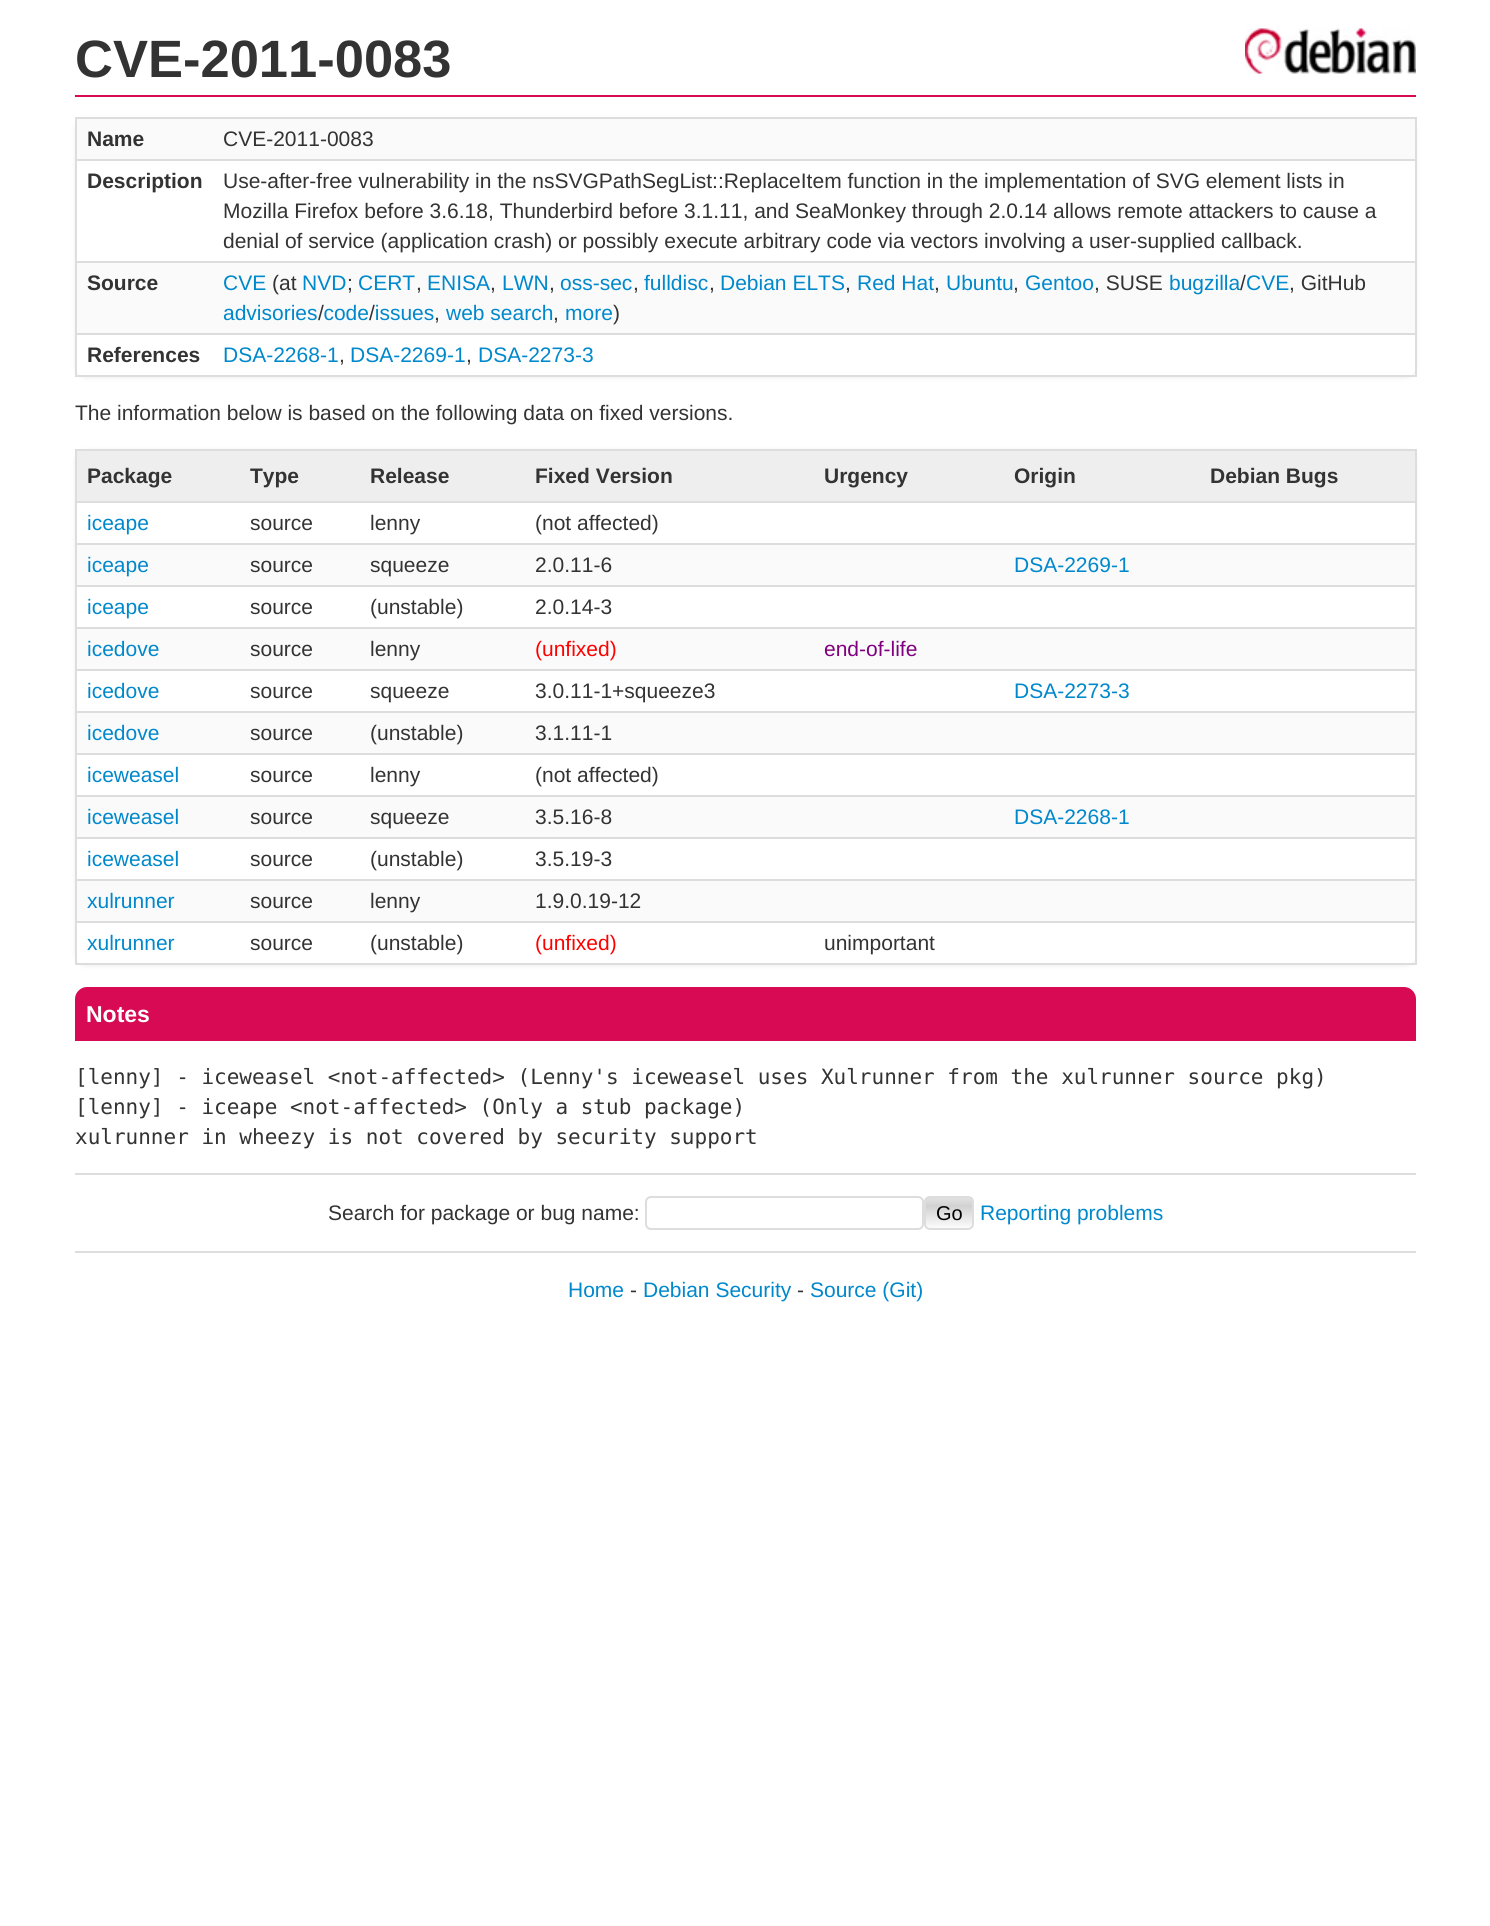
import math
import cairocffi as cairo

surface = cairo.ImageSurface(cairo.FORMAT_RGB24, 1490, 1926)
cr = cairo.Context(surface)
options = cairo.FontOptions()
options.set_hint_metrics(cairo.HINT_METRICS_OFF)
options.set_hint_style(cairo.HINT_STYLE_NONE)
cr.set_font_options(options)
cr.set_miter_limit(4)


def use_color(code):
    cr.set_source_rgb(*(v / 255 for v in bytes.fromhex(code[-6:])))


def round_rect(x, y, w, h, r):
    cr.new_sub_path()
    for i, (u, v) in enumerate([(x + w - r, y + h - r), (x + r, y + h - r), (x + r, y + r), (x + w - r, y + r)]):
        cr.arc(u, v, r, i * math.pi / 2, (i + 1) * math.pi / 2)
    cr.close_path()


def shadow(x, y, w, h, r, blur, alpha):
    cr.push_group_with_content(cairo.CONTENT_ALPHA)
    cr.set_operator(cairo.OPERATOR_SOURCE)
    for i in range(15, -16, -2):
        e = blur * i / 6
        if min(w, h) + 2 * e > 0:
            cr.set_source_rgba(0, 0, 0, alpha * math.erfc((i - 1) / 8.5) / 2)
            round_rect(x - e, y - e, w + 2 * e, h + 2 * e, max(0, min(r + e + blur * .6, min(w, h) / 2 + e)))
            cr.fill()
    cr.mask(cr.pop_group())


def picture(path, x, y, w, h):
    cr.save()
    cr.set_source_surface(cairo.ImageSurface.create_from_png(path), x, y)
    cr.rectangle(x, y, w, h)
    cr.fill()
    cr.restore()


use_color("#ffffff")
cr.paint()
picture("img1.png", 1245, 28, 171, 46)
use_color("#d70a53")
cr.rectangle(75, 95, 1341, 2)
cr.fill()
cr.select_font_face("Liberation Sans", cairo.FONT_SLANT_NORMAL, cairo.FONT_WEIGHT_BOLD)
cr.set_font_size(52.5)
use_color("#333333")
cr.move_to(75, 77)
cr.show_text("CVE-2011-0083")
cr.save()
cr.set_fill_rule(cairo.FILL_RULE_EVEN_ODD)
cr.new_path()
cr.move_to(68, 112)
cr.line_to(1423, 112)
cr.line_to(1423, 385)
cr.line_to(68, 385)
cr.close_path()
cr.move_to(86, 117)
cr.line_to(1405, 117)
cr.curve_to(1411, 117, 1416, 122, 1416, 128)
cr.line_to(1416, 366)
cr.curve_to(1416, 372, 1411, 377, 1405, 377)
cr.line_to(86, 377)
cr.curve_to(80, 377, 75, 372, 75, 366)
cr.line_to(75, 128)
cr.curve_to(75, 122, 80, 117, 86, 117)
cr.close_path()
cr.clip()
use_color("#eeeeee")
shadow(75, 119, 1341, 259, 11, 2, 1)
cr.restore()
use_color("#dddddd")
cr.rectangle(75, 117, 1341, 2)
cr.fill()
cr.rectangle(1415, 117, 2, 260)
cr.fill()
cr.rectangle(75, 375, 1341, 2)
cr.fill()
cr.rectangle(75, 117, 2, 260)
cr.fill()
use_color("#fafafa")
cr.rectangle(77, 119, 1338, 40)
cr.fill()
cr.set_font_size(21)
use_color("#333333")
cr.move_to(87, 146)
cr.show_text("Name")
use_color("#dddddd")
cr.rectangle(75, 159, 1341, 2)
cr.fill()
cr.select_font_face("Liberation Sans")
use_color("#333333")
cr.move_to(223, 146)
cr.show_text("CVE-2011-0083")
cr.select_font_face("Liberation Sans", cairo.FONT_SLANT_NORMAL, cairo.FONT_WEIGHT_BOLD)
cr.move_to(87, 188)
cr.show_text("Description")
use_color("#dddddd")
cr.rectangle(75, 261, 1341, 2)
cr.fill()
cr.select_font_face("Liberation Sans")
use_color("#333333")
cr.move_to(223, 188)
cr.show_text("Use-after-free vulnerability in the nsSVGPathSegList::ReplaceItem function in the implementation of SVG element lists in")
cr.move_to(223, 218)
cr.show_text("Mozilla Firefox before 3.6.18, Thunderbird before 3.1.11, and SeaMonkey through 2.0.14 allows remote attackers to cause a")
cr.move_to(223, 248)
cr.show_text("denial of service (application crash) or possibly execute arbitrary code via vectors involving a user-supplied callback.")
use_color("#fafafa")
cr.rectangle(77, 263, 1338, 70)
cr.fill()
cr.select_font_face("Liberation Sans", cairo.FONT_SLANT_NORMAL, cairo.FONT_WEIGHT_BOLD)
use_color("#333333")
cr.move_to(87, 290)
cr.show_text("Source")
use_color("#dddddd")
cr.rectangle(75, 333, 1341, 2)
cr.fill()
cr.select_font_face("Liberation Sans")
use_color("#333333")
cr.move_to(272, 290)
cr.show_text("(at")
use_color("#0088cc")
cr.move_to(644, 290)
cr.show_text("fulldisc")
cr.move_to(720, 290)
cr.show_text("Debian ELTS")
cr.move_to(857, 290)
cr.show_text("Red Hat")
cr.move_to(946, 290)
cr.show_text("Ubuntu")
cr.move_to(1169, 290)
cr.show_text("bugzilla CVE")
cr.move_to(223, 290)
cr.show_text("CVE")
cr.move_to(302, 290)
cr.show_text("NVD")
use_color("#333333")
cr.move_to(347, 290)
cr.show_text(";")
use_color("#0088cc")
cr.move_to(358, 290)
cr.show_text("CERT")
use_color("#333333")
cr.move_to(416, 290)
cr.show_text(",")
use_color("#0088cc")
cr.move_to(427, 290)
cr.show_text("ENISA")
use_color("#333333")
cr.move_to(490, 290)
cr.show_text(",")
use_color("#0088cc")
cr.move_to(502, 290)
cr.show_text("LWN")
use_color("#333333")
cr.move_to(549, 290)
cr.show_text(",")
use_color("#0088cc")
cr.move_to(560, 290)
cr.show_text("oss-sec")
use_color("#333333")
cr.move_to(633, 290)
cr.show_text(",")
cr.move_to(709, 290)
cr.show_text(",")
cr.move_to(845, 290)
cr.show_text(",")
cr.move_to(934, 290)
cr.show_text(",")
cr.move_to(1013, 290)
cr.show_text(",")
use_color("#0088cc")
cr.move_to(1025, 290)
cr.show_text("Gentoo")
use_color("#333333")
cr.move_to(1094, 290)
cr.show_text(", SUSE")
cr.move_to(1240, 290)
cr.show_text("/")
cr.move_to(1289, 290)
cr.show_text(", GitHub")
use_color("#0088cc")
cr.move_to(223, 320)
cr.show_text("advisories code issues")
use_color("#333333")
cr.move_to(318, 320)
cr.show_text("/")
cr.move_to(369, 320)
cr.show_text("/")
cr.move_to(434, 320)
cr.show_text(",")
use_color("#0088cc")
cr.move_to(446, 320)
cr.show_text("web search")
use_color("#333333")
cr.move_to(553, 320)
cr.show_text(",")
use_color("#0088cc")
cr.move_to(565, 320)
cr.show_text("more")
use_color("#333333")
cr.move_to(613, 320)
cr.show_text(")")
cr.select_font_face("Liberation Sans", cairo.FONT_SLANT_NORMAL, cairo.FONT_WEIGHT_BOLD)
cr.move_to(87, 362)
cr.show_text("References")
cr.select_font_face("Liberation Sans")
use_color("#0088cc")
cr.move_to(223, 362)
cr.show_text("DSA-2268-1")
use_color("#333333")
cr.move_to(339, 362)
cr.show_text(",")
use_color("#0088cc")
cr.move_to(350, 362)
cr.show_text("DSA-2269-1")
use_color("#333333")
cr.move_to(466, 362)
cr.show_text(",")
use_color("#0088cc")
cr.move_to(478, 362)
cr.show_text("DSA-2273-3")
use_color("#333333")
cr.move_to(75, 420)
cr.show_text("The information below is based on the following data on fixed versions.")
cr.save()
cr.set_fill_rule(cairo.FILL_RULE_EVEN_ODD)
cr.new_path()
cr.move_to(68, 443)
cr.line_to(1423, 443)
cr.line_to(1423, 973)
cr.line_to(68, 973)
cr.close_path()
cr.move_to(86, 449)
cr.line_to(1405, 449)
cr.curve_to(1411, 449, 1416, 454, 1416, 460)
cr.line_to(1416, 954)
cr.curve_to(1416, 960, 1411, 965, 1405, 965)
cr.line_to(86, 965)
cr.curve_to(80, 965, 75, 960, 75, 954)
cr.line_to(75, 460)
cr.curve_to(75, 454, 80, 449, 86, 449)
cr.close_path()
cr.clip()
use_color("#eeeeee")
shadow(75, 450, 1341, 516, 11, 2, 1)
cr.restore()
use_color("#dddddd")
cr.rectangle(75, 449, 1341, 2)
cr.fill()
cr.rectangle(1415, 449, 2, 516)
cr.fill()
cr.rectangle(75, 963, 1341, 2)
cr.fill()
cr.rectangle(75, 449, 2, 516)
cr.fill()
use_color("#eeeeee")
cr.rectangle(77, 451, 1338, 50)
cr.fill()
cr.select_font_face("Liberation Sans", cairo.FONT_SLANT_NORMAL, cairo.FONT_WEIGHT_BOLD)
use_color("#333333")
cr.move_to(87, 483)
cr.show_text("Package")
cr.move_to(250, 483)
cr.show_text("Type")
cr.move_to(370, 483)
cr.show_text("Release")
cr.move_to(535, 483)
cr.show_text("Fixed Version")
cr.move_to(824, 483)
cr.show_text("Urgency")
cr.move_to(1014, 483)
cr.show_text("Origin")
use_color("#dddddd")
cr.rectangle(75, 501, 1341, 2)
cr.fill()
use_color("#333333")
cr.move_to(1210, 483)
cr.show_text("Debian Bugs")
cr.select_font_face("Liberation Sans")
use_color("#0088cc")
cr.move_to(87, 530)
cr.show_text("iceape")
use_color("#333333")
cr.move_to(250, 530)
cr.show_text("source")
cr.move_to(370, 530)
cr.show_text("lenny")
cr.move_to(535, 530)
cr.show_text("(not affected)")
use_color("#dddddd")
cr.rectangle(75, 543, 1341, 2)
cr.fill()
use_color("#fafafa")
cr.rectangle(77, 545, 1338, 40)
cr.fill()
use_color("#0088cc")
cr.move_to(87, 572)
cr.show_text("iceape")
use_color("#333333")
cr.move_to(250, 572)
cr.show_text("source")
cr.move_to(370, 572)
cr.show_text("squeeze")
cr.move_to(535, 572)
cr.show_text("2.0.11-6")
use_color("#0088cc")
cr.move_to(1014, 572)
cr.show_text("DSA-2269-1")
use_color("#dddddd")
cr.rectangle(75, 585, 1341, 2)
cr.fill()
use_color("#0088cc")
cr.move_to(87, 614)
cr.show_text("iceape")
use_color("#333333")
cr.move_to(250, 614)
cr.show_text("source")
cr.move_to(370, 614)
cr.show_text("(unstable)")
cr.move_to(535, 614)
cr.show_text("2.0.14-3")
use_color("#dddddd")
cr.rectangle(75, 627, 1341, 2)
cr.fill()
use_color("#fafafa")
cr.rectangle(77, 629, 1338, 40)
cr.fill()
use_color("#0088cc")
cr.move_to(87, 656)
cr.show_text("icedove")
use_color("#333333")
cr.move_to(250, 656)
cr.show_text("source")
cr.move_to(370, 656)
cr.show_text("lenny")
use_color("#ff0000")
cr.move_to(535, 656)
cr.show_text("(unfixed)")
use_color("#800080")
cr.move_to(824, 656)
cr.show_text("end-of-life")
use_color("#dddddd")
cr.rectangle(75, 669, 1341, 2)
cr.fill()
use_color("#0088cc")
cr.move_to(87, 698)
cr.show_text("icedove")
use_color("#333333")
cr.move_to(250, 698)
cr.show_text("source")
cr.move_to(370, 698)
cr.show_text("squeeze")
cr.move_to(535, 698)
cr.show_text("3.0.11-1+squeeze3")
use_color("#0088cc")
cr.move_to(1014, 698)
cr.show_text("DSA-2273-3")
use_color("#dddddd")
cr.rectangle(75, 711, 1341, 2)
cr.fill()
use_color("#fafafa")
cr.rectangle(77, 713, 1338, 40)
cr.fill()
use_color("#0088cc")
cr.move_to(87, 740)
cr.show_text("icedove")
use_color("#333333")
cr.move_to(250, 740)
cr.show_text("source")
cr.move_to(370, 740)
cr.show_text("(unstable)")
cr.move_to(535, 740)
cr.show_text("3.1.11-1")
use_color("#dddddd")
cr.rectangle(75, 753, 1341, 2)
cr.fill()
use_color("#0088cc")
cr.move_to(87, 782)
cr.show_text("iceweasel")
use_color("#333333")
cr.move_to(250, 782)
cr.show_text("source")
cr.move_to(370, 782)
cr.show_text("lenny")
cr.move_to(535, 782)
cr.show_text("(not affected)")
use_color("#dddddd")
cr.rectangle(75, 795, 1341, 2)
cr.fill()
use_color("#fafafa")
cr.rectangle(77, 797, 1338, 40)
cr.fill()
use_color("#0088cc")
cr.move_to(87, 824)
cr.show_text("iceweasel")
use_color("#333333")
cr.move_to(250, 824)
cr.show_text("source")
cr.move_to(370, 824)
cr.show_text("squeeze")
cr.move_to(535, 824)
cr.show_text("3.5.16-8")
use_color("#0088cc")
cr.move_to(1014, 824)
cr.show_text("DSA-2268-1")
use_color("#dddddd")
cr.rectangle(75, 837, 1341, 2)
cr.fill()
use_color("#0088cc")
cr.move_to(87, 866)
cr.show_text("iceweasel")
use_color("#333333")
cr.move_to(250, 866)
cr.show_text("source")
cr.move_to(370, 866)
cr.show_text("(unstable)")
cr.move_to(535, 866)
cr.show_text("3.5.19-3")
use_color("#dddddd")
cr.rectangle(75, 879, 1341, 2)
cr.fill()
use_color("#fafafa")
cr.rectangle(77, 881, 1338, 40)
cr.fill()
use_color("#0088cc")
cr.move_to(87, 908)
cr.show_text("xulrunner")
use_color("#333333")
cr.move_to(250, 908)
cr.show_text("source")
cr.move_to(370, 908)
cr.show_text("lenny")
cr.move_to(535, 908)
cr.show_text("1.9.0.19-12")
use_color("#dddddd")
cr.rectangle(75, 921, 1341, 2)
cr.fill()
use_color("#0088cc")
cr.move_to(87, 950)
cr.show_text("xulrunner")
use_color("#333333")
cr.move_to(250, 950)
cr.show_text("source")
cr.move_to(370, 950)
cr.show_text("(unstable)")
use_color("#ff0000")
cr.move_to(535, 950)
cr.show_text("(unfixed)")
use_color("#333333")
cr.move_to(824, 950)
cr.show_text("unimportant")
use_color("#d70a53")
cr.new_path()
cr.move_to(87, 987)
cr.line_to(1404, 987)
cr.curve_to(1410.5, 987, 1416, 992.5, 1416, 999)
cr.line_to(1416, 1041)
cr.line_to(75, 1041)
cr.line_to(75, 999)
cr.curve_to(75, 992.5, 80.5, 987, 87, 987)
cr.close_path()
cr.fill()
cr.select_font_face("Liberation Sans", cairo.FONT_SLANT_NORMAL, cairo.FONT_WEIGHT_BOLD)
cr.set_font_size(23)
use_color("#ffffff")
cr.move_to(86, 1022)
cr.show_text("Notes")
cr.select_font_face("DejaVu Sans Mono")
cr.set_font_size(21)
use_color("#333333")
cr.move_to(75, 1084)
cr.show_text("[lenny] - iceweasel <not-affected> (Lenny's iceweasel uses Xulrunner from the xulrunner source pkg)")
cr.move_to(75, 1114)
cr.show_text("[lenny] - iceape <not-affected> (Only a stub package)")
cr.move_to(75, 1144)
cr.show_text("xulrunner in wheezy is not covered by security support")
use_color("#dddddd")
cr.rectangle(75, 1173, 1341, 2)
cr.fill()
cr.rectangle(75, 1251, 1341, 2)
cr.fill()
cr.select_font_face("Liberation Sans")
use_color("#333333")
cr.move_to(328, 1220)
cr.show_text("Search for package or bug name:")
round_rect(646, 1197, 277, 32, 5)
use_color("#dddddd")
cr.stroke()
cr.save()
round_rect(924, 1196, 50, 34, 6)
cr.clip()
gradient = cairo.LinearGradient(949, 1197, 949, 1229)
gradient.add_color_stop_rgba(0, 0.886, 0.886, 0.886, 1)
gradient.add_color_stop_rgba(0.15, 0.859, 0.859, 0.859, 1)
gradient.add_color_stop_rgba(0.28, 0.82, 0.82, 0.82, 1)
gradient.add_color_stop_rgba(1, 0.996, 0.996, 0.996, 1)
cr.set_source(gradient)
cr.rectangle(924, 1197, 50, 32)
cr.fill()
cr.restore()
round_rect(925, 1197, 48, 32, 5)
cr.stroke()
cr.set_font_size(20)
use_color("#000000")
cr.move_to(936, 1220)
cr.show_text("Go")
cr.set_font_size(21)
use_color("#0088cc")
cr.move_to(980, 1220)
cr.show_text("Reporting problems")
cr.move_to(568, 1297)
cr.show_text("Home")
use_color("#333333")
cr.move_to(630, 1297)
cr.show_text("-")
use_color("#0088cc")
cr.move_to(643, 1297)
cr.show_text("Debian Security")
use_color("#333333")
cr.move_to(797, 1297)
cr.show_text("-")
use_color("#0088cc")
cr.move_to(810, 1297)
cr.show_text("Source (Git)")
surface.write_to_png("result.png")
